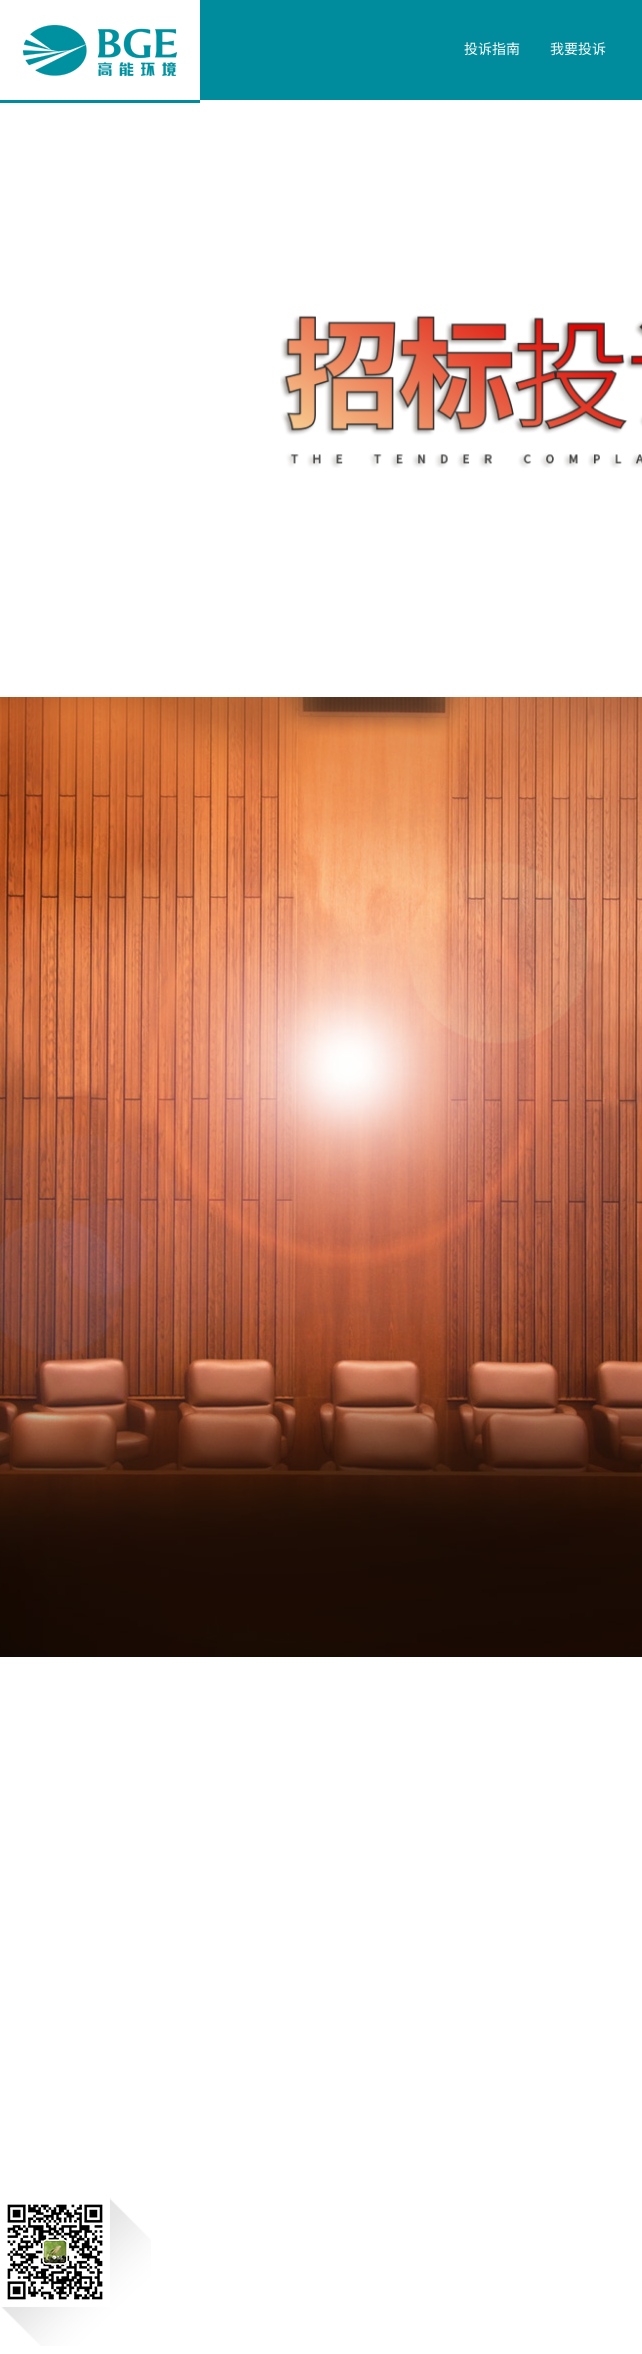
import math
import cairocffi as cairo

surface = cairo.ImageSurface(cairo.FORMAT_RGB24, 642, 2354)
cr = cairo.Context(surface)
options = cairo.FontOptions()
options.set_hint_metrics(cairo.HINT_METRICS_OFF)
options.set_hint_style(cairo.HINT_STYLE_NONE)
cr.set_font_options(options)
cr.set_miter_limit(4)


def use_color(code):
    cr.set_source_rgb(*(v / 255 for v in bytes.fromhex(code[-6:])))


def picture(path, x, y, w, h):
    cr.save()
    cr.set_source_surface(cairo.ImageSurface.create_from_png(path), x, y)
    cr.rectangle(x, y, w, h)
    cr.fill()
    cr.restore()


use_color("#ffffff")
cr.paint()
picture("img1.png", 0, 697, 642, 960)
picture("img2.png", 23, 25, 154, 51)
use_color("#008c9c")
cr.rectangle(0, 100, 200, 3)
cr.fill()
cr.rectangle(200, 0, 442, 100)
cr.fill()
cr.select_font_face("Noto Sans CJK SC")
cr.set_font_size(14)
use_color("#ffffff")
cr.move_to(464, 54)
cr.show_text("投诉指南")
cr.move_to(550, 54)
cr.show_text("我要投诉")
picture("img3.png", 280, 315, 362, 153)
picture("img4.png", 1, 2198, 150, 148)
surface.write_to_png("result.png")
